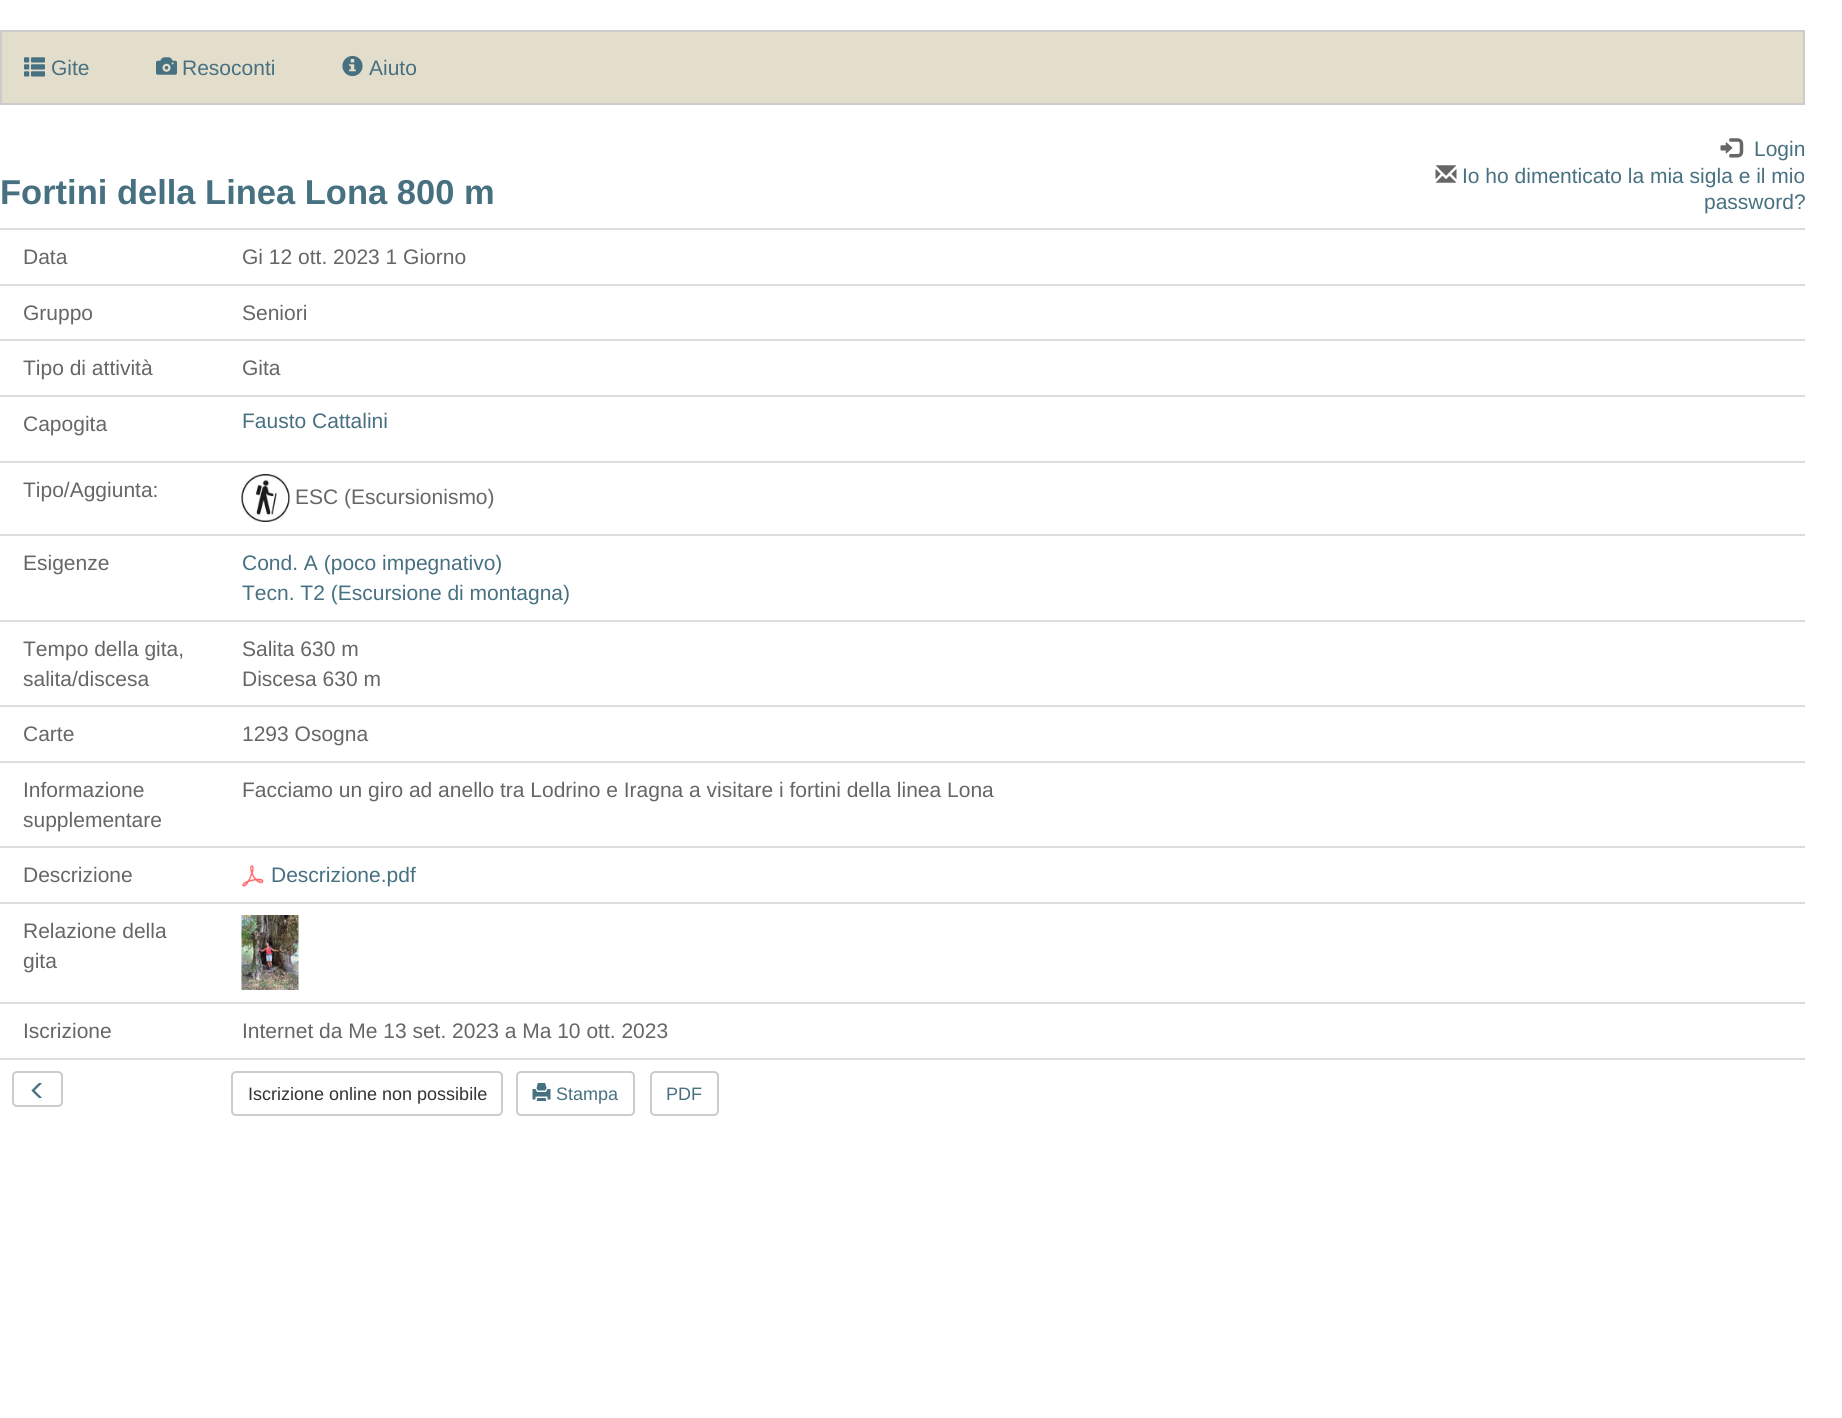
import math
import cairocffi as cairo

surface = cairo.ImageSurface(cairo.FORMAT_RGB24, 1842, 1418)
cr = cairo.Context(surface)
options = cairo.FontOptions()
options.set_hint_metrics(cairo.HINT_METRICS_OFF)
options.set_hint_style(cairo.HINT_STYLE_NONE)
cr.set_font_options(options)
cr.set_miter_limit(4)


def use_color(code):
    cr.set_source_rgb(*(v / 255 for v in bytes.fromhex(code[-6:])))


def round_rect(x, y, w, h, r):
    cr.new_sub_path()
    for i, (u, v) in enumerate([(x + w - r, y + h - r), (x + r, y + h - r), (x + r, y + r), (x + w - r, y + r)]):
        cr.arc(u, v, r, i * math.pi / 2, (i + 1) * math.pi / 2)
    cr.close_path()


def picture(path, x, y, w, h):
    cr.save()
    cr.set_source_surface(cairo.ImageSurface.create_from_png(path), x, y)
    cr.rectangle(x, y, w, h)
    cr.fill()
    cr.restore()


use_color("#ffffff")
cr.paint()
use_color("#e3ddcc")
cr.rectangle(1, 31, 1803, 73)
cr.fill_preserve()
use_color("#cccccc")
cr.stroke()
picture("img1.png", 24, 57, 21, 20)
cr.select_font_face("Liberation Sans")
cr.set_font_size(21)
use_color("#477081")
cr.move_to(51, 75)
cr.show_text("Gite")
picture("img2.png", 156, 57, 21, 18)
cr.move_to(182, 75)
cr.show_text("Resoconti")
picture("img3.png", 342, 55, 21, 22)
cr.move_to(369, 75)
cr.show_text("Aiuto")
cr.select_font_face("Liberation Sans", cairo.FONT_SLANT_NORMAL, cairo.FONT_WEIGHT_BOLD)
cr.set_font_size(34.5)
cr.move_to(0, 204)
cr.show_text("Fortini della Linea Lona 800 m")
picture("img4.png", 1720, 138, 24, 20)
cr.select_font_face("Liberation Sans")
cr.set_font_size(21)
cr.move_to(1754, 156)
cr.show_text("Login")
picture("img5.png", 1435, 165, 22, 18)
cr.move_to(1462, 183)
cr.show_text("Io ho dimenticato la mia sigla e il mio")
cr.move_to(1704, 209)
cr.show_text("password?")
use_color("#666666")
cr.move_to(23, 264)
cr.show_text("Data")
use_color("#dddddd")
cr.rectangle(0, 228, 1805, 2)
cr.fill()
use_color("#666666")
cr.move_to(242, 264)
cr.show_text("Gi 12 ott. 2023 1 Giorno")
cr.move_to(23, 320)
cr.show_text("Gruppo")
use_color("#dddddd")
cr.rectangle(0, 284, 1805, 2)
cr.fill()
use_color("#666666")
cr.move_to(242, 320)
cr.show_text("Seniori")
cr.move_to(23, 375)
cr.show_text("Tipo di attività")
use_color("#dddddd")
cr.rectangle(0, 339, 1805, 2)
cr.fill()
use_color("#666666")
cr.move_to(242, 375)
cr.show_text("Gita")
cr.move_to(23, 431)
cr.show_text("Capogita")
use_color("#dddddd")
cr.rectangle(0, 395, 1805, 2)
cr.fill()
use_color("#477081")
cr.move_to(242, 428)
cr.show_text("Fausto Cattalini")
use_color("#dddddd")
cr.rectangle(0, 461, 1805, 2)
cr.fill()
use_color("#666666")
cr.move_to(23, 497)
cr.show_text("Tipo/Aggiunta:")
picture("img6.png", 241, 474, 49, 48)
cr.move_to(295, 504)
cr.show_text("ESC (Escursionismo)")
use_color("#dddddd")
cr.rectangle(0, 534, 1805, 2)
cr.fill()
use_color("#666666")
cr.move_to(23, 570)
cr.show_text("Esigenze")
use_color("#477081")
cr.move_to(242, 570)
cr.show_text("Cond. A (poco impegnativo)")
cr.move_to(242, 600)
cr.show_text("Tecn. T2 (Escursione di montagna)")
use_color("#666666")
cr.move_to(23, 656)
cr.show_text("Tempo della gita,")
cr.move_to(23, 686)
cr.show_text("salita/discesa")
use_color("#dddddd")
cr.rectangle(0, 620, 1805, 2)
cr.fill()
use_color("#666666")
cr.move_to(242, 656)
cr.show_text("Salita 630 m")
cr.move_to(242, 686)
cr.show_text("Discesa 630 m")
cr.move_to(23, 741)
cr.show_text("Carte")
use_color("#dddddd")
cr.rectangle(0, 705, 1805, 2)
cr.fill()
use_color("#666666")
cr.move_to(242, 741)
cr.show_text("1293 Osogna")
cr.move_to(23, 797)
cr.show_text("Informazione")
cr.move_to(23, 827)
cr.show_text("supplementare")
use_color("#dddddd")
cr.rectangle(0, 761, 1805, 2)
cr.fill()
use_color("#666666")
cr.move_to(242, 797)
cr.show_text("Facciamo un giro ad anello tra Lodrino e Iragna a visitare i fortini della linea Lona")
cr.move_to(23, 882)
cr.show_text("Descrizione")
use_color("#dddddd")
cr.rectangle(0, 846, 1805, 2)
cr.fill()
picture("img7.png", 242, 865, 22, 22)
use_color("#477081")
cr.move_to(271, 882)
cr.show_text("Descrizione.pdf")
use_color("#dddddd")
cr.rectangle(0, 902, 1805, 2)
cr.fill()
picture("img8.png", 241, 915, 58, 75)
use_color("#666666")
cr.move_to(23, 938)
cr.show_text("Relazione della")
cr.move_to(23, 968)
cr.show_text("gita")
cr.move_to(23, 1038)
cr.show_text("Iscrizione")
use_color("#dddddd")
cr.rectangle(0, 1002, 1805, 2)
cr.fill()
use_color("#666666")
cr.move_to(242, 1038)
cr.show_text("Internet da Me 13 set. 2023 a Ma 10 ott. 2023")
round_rect(13, 1072, 49, 34, 4)
use_color("#cccccc")
cr.stroke()
picture("img9.png", 31, 1083, 11, 15)
use_color("#dddddd")
cr.rectangle(0, 1058, 1805, 2)
cr.fill()
round_rect(232, 1072, 270, 43, 4)
use_color("#cccccc")
cr.stroke()
cr.set_font_size(18)
use_color("#333333")
cr.move_to(248, 1100)
cr.show_text("Iscrizione online non possibile")
round_rect(517, 1072, 117, 43, 4)
use_color("#cccccc")
cr.stroke()
picture("img10.png", 532, 1083, 19, 18)
use_color("#477081")
cr.move_to(556, 1100)
cr.show_text("Stampa")
round_rect(651, 1072, 67, 43, 4)
use_color("#cccccc")
cr.stroke()
use_color("#477081")
cr.move_to(666, 1100)
cr.show_text("PDF")
surface.write_to_png("result.png")
